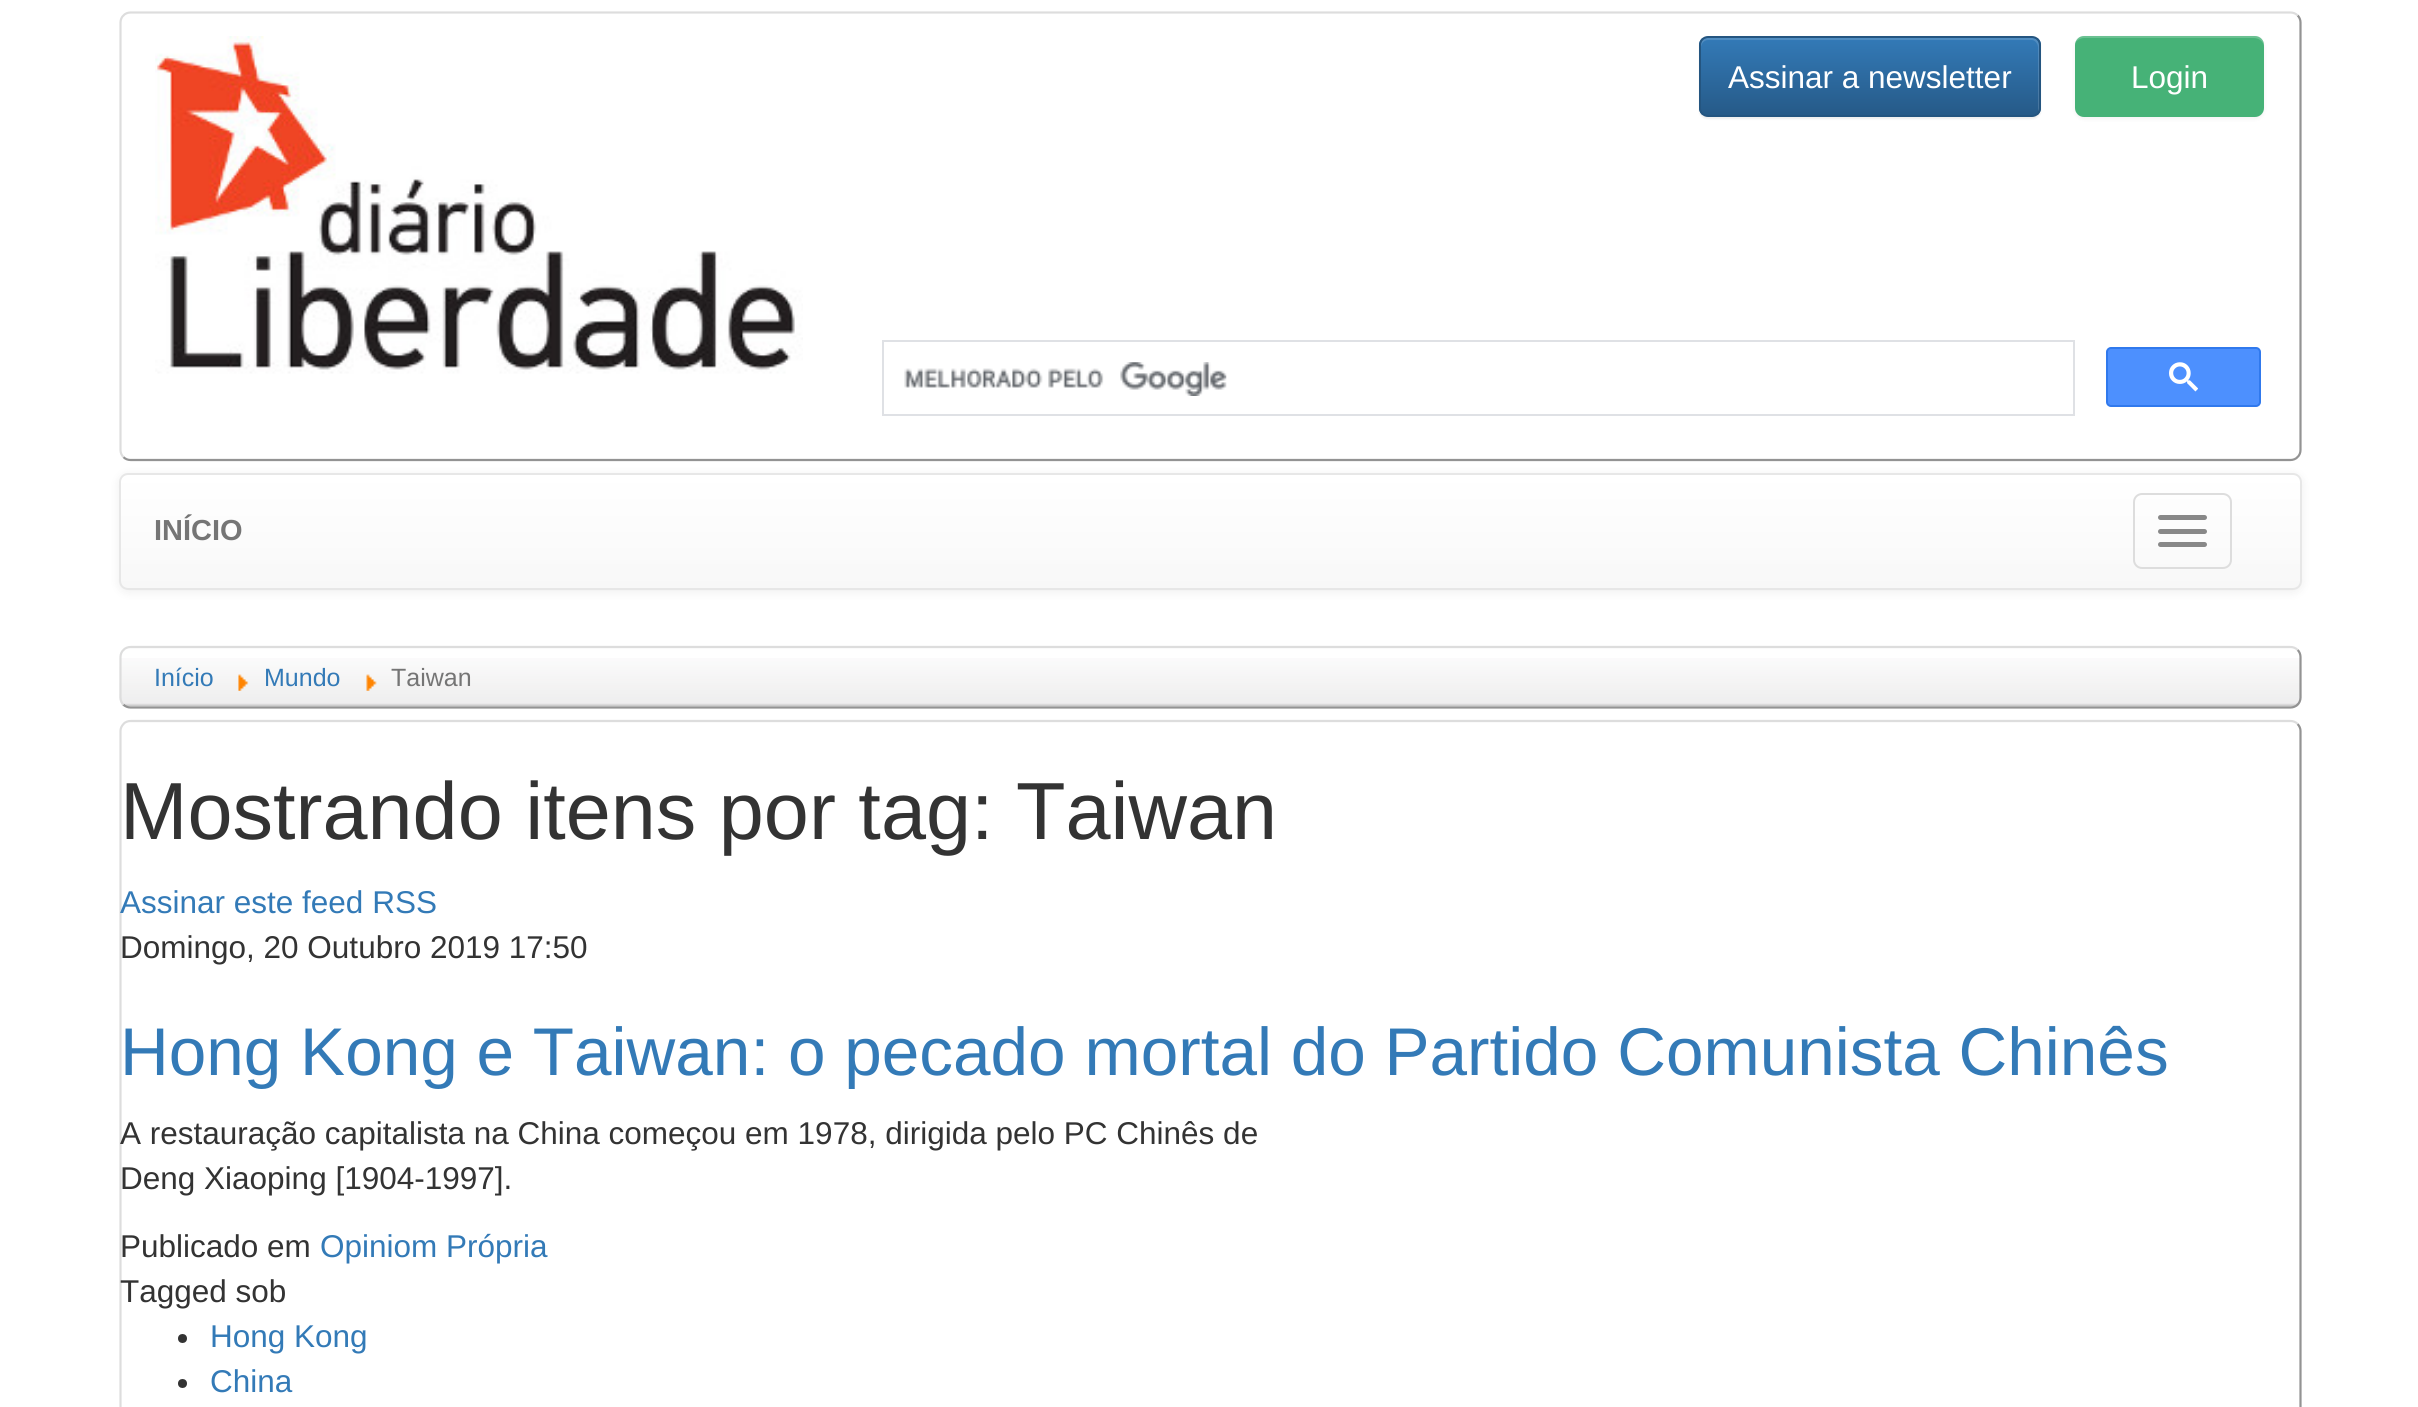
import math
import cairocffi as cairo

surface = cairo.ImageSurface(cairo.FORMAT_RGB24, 2418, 1407)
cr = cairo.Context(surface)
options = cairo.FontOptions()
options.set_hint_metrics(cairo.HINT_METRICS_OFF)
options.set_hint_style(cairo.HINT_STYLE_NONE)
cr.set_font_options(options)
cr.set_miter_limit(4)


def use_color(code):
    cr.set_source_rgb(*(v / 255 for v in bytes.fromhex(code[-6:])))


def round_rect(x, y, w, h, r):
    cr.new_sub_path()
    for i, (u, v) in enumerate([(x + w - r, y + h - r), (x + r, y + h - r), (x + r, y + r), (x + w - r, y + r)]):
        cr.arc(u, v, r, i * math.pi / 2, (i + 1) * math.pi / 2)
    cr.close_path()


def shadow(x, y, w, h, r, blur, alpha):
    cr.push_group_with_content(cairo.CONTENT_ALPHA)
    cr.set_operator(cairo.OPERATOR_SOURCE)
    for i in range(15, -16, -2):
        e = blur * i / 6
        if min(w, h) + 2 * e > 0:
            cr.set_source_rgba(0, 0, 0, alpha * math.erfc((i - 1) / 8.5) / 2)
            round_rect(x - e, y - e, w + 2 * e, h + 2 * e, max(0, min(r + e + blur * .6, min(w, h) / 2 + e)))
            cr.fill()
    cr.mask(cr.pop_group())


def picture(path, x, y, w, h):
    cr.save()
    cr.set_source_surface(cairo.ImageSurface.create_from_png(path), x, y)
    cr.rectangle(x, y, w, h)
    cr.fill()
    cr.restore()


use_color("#ffffff")
cr.paint()
cr.new_path()
cr.move_to(2297.5, 15.5)
cr.curve_to(2299.5, 17, 2300.5, 20, 2300.5, 22.5)
cr.line_to(2300.5, 450)
cr.curve_to(2300.5, 452.5, 2299.5, 455.5, 2297.5, 457)
cr.curve_to(2296, 459, 2293, 460, 2290.5, 460)
cr.line_to(130.5, 460)
cr.curve_to(128, 460, 125, 459, 123.5, 457)
use_color("#939393")
cr.set_line_width(2.2)
cr.stroke()
cr.new_path()
cr.move_to(123.5, 457)
cr.curve_to(121.5, 455.5, 120.5, 452.5, 120.5, 450)
cr.line_to(120.5, 22.5)
cr.curve_to(120.5, 20, 121.5, 17, 123.5, 15.5)
cr.curve_to(125, 13.5, 128, 12.5, 130.5, 12.5)
cr.line_to(2290.5, 12.5)
cr.curve_to(2293, 12.5, 2296, 13.5, 2297.5, 15.5)
use_color("#dddddd")
cr.stroke()
picture("img1.png", 155, 36, 648, 338)
use_color("#000000")
shadow(1699, 38, 342, 81, 9, 1, 0.07)
cr.save()
round_rect(1699, 36, 342, 81, 9)
cr.clip()
gradient = cairo.LinearGradient(1870, 38, 1870, 115)
gradient.add_color_stop_rgba(0, 0.2, 0.478, 0.718, 1)
gradient.add_color_stop_rgba(1, 0.149, 0.353, 0.533, 1)
cr.set_source(gradient)
cr.rectangle(1699, 38, 342, 77)
cr.fill()
cr.restore()
cr.set_source_rgba(1, 1, 1, 0.15)
cr.new_path()
cr.move_to(1708, 40)
cr.line_to(2032, 40)
cr.curve_to(2035, 40, 2038, 44, 2038, 47)
cr.line_to(2038, 112)
cr.curve_to(2039, 111, 2039, 109, 2039, 108)
cr.line_to(2039, 45)
cr.curve_to(2039, 41, 2036, 38, 2032, 38)
cr.line_to(1708, 38)
cr.curve_to(1704, 38, 1701, 41, 1701, 45)
cr.line_to(1701, 47)
cr.curve_to(1701, 44, 1704, 40, 1708, 40)
cr.close_path()
cr.fill()
round_rect(1700, 37, 340, 79, 8)
use_color("#245580")
cr.set_line_width(2)
cr.stroke()
cr.select_font_face("Liberation Sans")
cr.set_font_size(31.5)
use_color("#ffffff")
cr.move_to(1728, 88)
cr.show_text("Assinar a newsletter")
use_color("#000000")
shadow(2075, 38, 189, 81, 9, 2, 0.05)
use_color("#46b277")
round_rect(2075, 36, 189, 81, 9)
cr.fill()
cr.set_source_rgba(1, 1, 1, 0.2)
cr.new_path()
cr.move_to(2084, 38)
cr.line_to(2254, 38)
cr.curve_to(2259, 38, 2264, 42, 2264, 47)
cr.line_to(2264, 45)
cr.curve_to(2264, 40, 2260, 36, 2255, 36)
cr.line_to(2084, 36)
cr.curve_to(2080, 36, 2076, 39, 2075, 43)
cr.curve_to(2077, 40, 2081, 38, 2084, 38)
cr.close_path()
cr.fill()
use_color("#ffffff")
cr.move_to(2131, 88)
cr.show_text("Login")
cr.rectangle(883, 341, 1191, 74)
use_color("#dfe1e5")
cr.stroke()
picture("img2.png", 904, 362, 323, 34)
use_color("#4d90fe")
round_rect(2107, 348, 153, 58, 4)
cr.fill_preserve()
use_color("#3079ed")
cr.stroke()
picture("img3.png", 2169, 362, 29, 30)
use_color("#000000")
shadow(119, 475, 2183, 117, 9, 5.5, 0.07)
use_color("#f8f8f8")
round_rect(119, 473, 2183, 117, 9)
cr.fill()
cr.save()
round_rect(119, 473, 2183, 117, 9)
cr.clip()
gradient = cairo.LinearGradient(1211, 475, 1211, 587)
gradient.add_color_stop_rgba(0, 1, 1, 1, 1)
gradient.add_color_stop_rgba(1, 0.973, 0.973, 0.973, 1)
cr.set_source(gradient)
cr.rectangle(119, 475, 2183, 112)
cr.fill()
cr.restore()
round_rect(120, 474, 2181, 115, 8)
use_color("#e7e7e7")
cr.stroke()
cr.select_font_face("Liberation Sans", cairo.FONT_SLANT_NORMAL, cairo.FONT_WEIGHT_BOLD)
cr.set_font_size(29)
use_color("#757575")
cr.move_to(154, 540)
cr.show_text("INÍCIO")
round_rect(2134, 494, 97, 74, 8)
use_color("#dddddd")
cr.stroke()
use_color("#888888")
round_rect(2158, 515, 49, 5, 2.5)
cr.fill()
round_rect(2158, 529, 49, 5, 2.5)
cr.fill()
round_rect(2158, 542, 49, 5, 2.5)
cr.fill()
picture("img4.png", 119, 658, 2183, 49)
cr.new_path()
cr.move_to(2297.5, 650)
cr.curve_to(2299.5, 651.5, 2300.5, 654.5, 2300.5, 657)
cr.line_to(2300.5, 697.5)
cr.curve_to(2300.5, 700, 2299.5, 703, 2297.5, 704.5)
cr.curve_to(2296, 706.5, 2293, 707.5, 2290.5, 707.5)
cr.line_to(130.5, 707.5)
cr.curve_to(128, 707.5, 125, 706.5, 123.5, 704.5)
use_color("#939393")
cr.set_line_width(2.2)
cr.stroke()
cr.new_path()
cr.move_to(123.5, 704.5)
cr.curve_to(121.5, 703, 120.5, 700, 120.5, 697.5)
cr.line_to(120.5, 657)
cr.curve_to(120.5, 654.5, 121.5, 651.5, 123.5, 650)
cr.curve_to(125, 648, 128, 647, 130.5, 647)
cr.line_to(2290.5, 647)
cr.curve_to(2293, 647, 2296, 648, 2297.5, 650)
use_color("#dddddd")
cr.stroke()
cr.select_font_face("Liberation Sans")
cr.set_font_size(25)
use_color("#337ab7")
cr.move_to(154, 686)
cr.show_text("Início")
picture("img5.png", 238, 674, 11, 17)
cr.move_to(264, 686)
cr.show_text("Mundo")
picture("img6.png", 366, 674, 11, 17)
use_color("#757575")
cr.move_to(391, 686)
cr.show_text("Taiwan")
cr.new_path()
cr.move_to(2297.5, 724)
cr.curve_to(2299.5, 726, 2300.5, 728.5, 2300.5, 731)
cr.line_to(2300.5, 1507.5)
cr.curve_to(2300.5, 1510, 2299.5, 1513, 2297.5, 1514.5)
cr.curve_to(2296, 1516.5, 2293, 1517.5, 2290.5, 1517.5)
cr.line_to(130.5, 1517.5)
cr.curve_to(128, 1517.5, 125, 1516.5, 123.5, 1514.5)
use_color("#939393")
cr.stroke()
cr.new_path()
cr.move_to(123.5, 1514.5)
cr.curve_to(121.5, 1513, 120.5, 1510, 120.5, 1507.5)
cr.line_to(120.5, 731)
cr.curve_to(120.5, 728.5, 121.5, 726, 123.5, 724)
cr.curve_to(125, 722, 128, 721, 130.5, 721)
cr.line_to(2290.5, 721)
cr.curve_to(2293, 721, 2296, 722, 2297.5, 724)
use_color("#dddddd")
cr.stroke()
cr.set_font_size(81)
use_color("#333333")
cr.move_to(120, 839)
cr.show_text("Mostrando itens por tag: Taiwan")
cr.set_font_size(31.5)
use_color("#337ab7")
cr.move_to(120, 913)
cr.show_text("Assinar este feed RSS")
use_color("#333333")
cr.move_to(120, 958)
cr.show_text("Domingo, 20 Outubro 2019 17:50")
cr.set_font_size(67.5)
use_color("#337ab7")
cr.move_to(120, 1075)
cr.show_text("Hong Kong e Taiwan: o pecado mortal do Partido Comunista Chinês")
cr.set_font_size(31.5)
use_color("#333333")
cr.move_to(120, 1144)
cr.show_text("A restauração capitalista na China começou em 1978, dirigida pelo PC Chinês de")
cr.move_to(120, 1189)
cr.show_text("Deng Xiaoping [1904-1997].")
cr.move_to(120, 1257)
cr.show_text("Publicado em")
use_color("#337ab7")
cr.move_to(320, 1257)
cr.show_text("Opiniom Própria")
use_color("#333333")
cr.move_to(120, 1302)
cr.show_text("Tagged sob")
cr.new_path()
cr.arc(182.5, 1338.5, 4.5, 0, 2 * math.pi)
cr.fill()
use_color("#337ab7")
cr.move_to(210, 1347)
cr.show_text("Hong Kong")
use_color("#333333")
cr.new_path()
cr.arc(182.5, 1383.5, 4.5, 0, 2 * math.pi)
cr.fill()
use_color("#337ab7")
cr.move_to(210, 1392)
cr.show_text("China")
surface.write_to_png("result.png")
